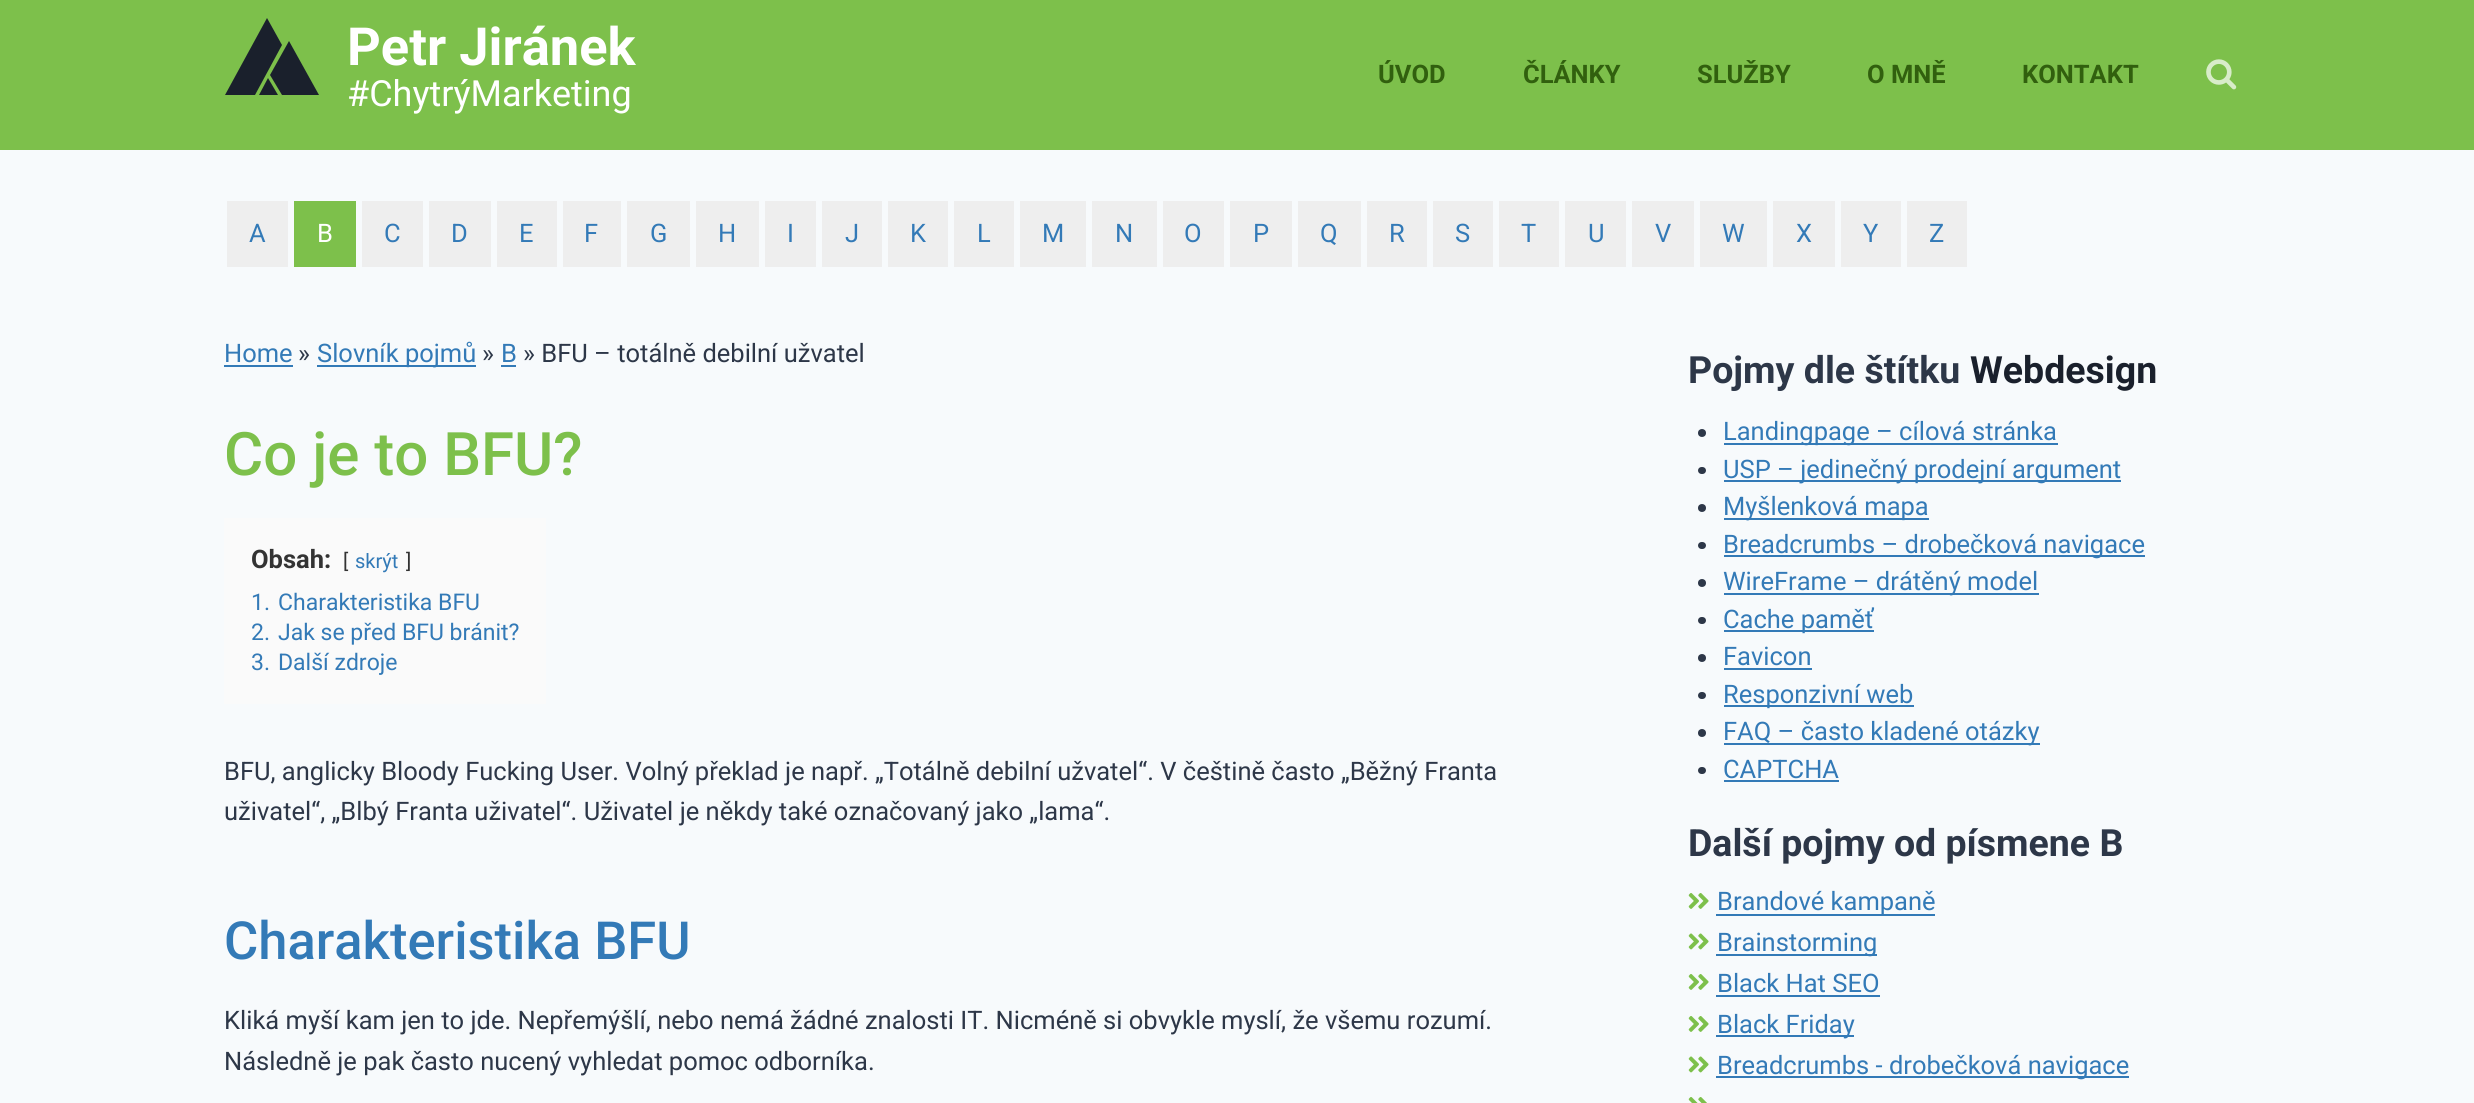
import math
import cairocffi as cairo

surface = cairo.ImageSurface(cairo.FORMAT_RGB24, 2474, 1103)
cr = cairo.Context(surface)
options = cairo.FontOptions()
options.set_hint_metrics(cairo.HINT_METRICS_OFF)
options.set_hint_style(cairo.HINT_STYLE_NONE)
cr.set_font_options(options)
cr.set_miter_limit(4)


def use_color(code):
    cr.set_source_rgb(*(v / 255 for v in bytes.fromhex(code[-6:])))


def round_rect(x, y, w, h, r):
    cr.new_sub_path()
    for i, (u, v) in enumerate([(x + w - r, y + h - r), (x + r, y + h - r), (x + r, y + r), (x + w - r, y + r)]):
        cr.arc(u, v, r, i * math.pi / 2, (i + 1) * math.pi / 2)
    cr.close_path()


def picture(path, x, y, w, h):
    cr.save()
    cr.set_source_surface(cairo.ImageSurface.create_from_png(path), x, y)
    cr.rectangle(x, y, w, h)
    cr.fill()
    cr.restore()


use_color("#f7fafc")
cr.paint()
use_color("#7dc04b")
cr.rectangle(0, 0, 2474, 150)
cr.fill()
use_color("#1a202c")
cr.new_path()
cr.move_to(282, 45)
cr.line_to(255, 95)
cr.line_to(225, 95)
cr.line_to(267, 18)
cr.close_path()
cr.move_to(268, 78)
cr.line_to(278, 95)
cr.line_to(259, 95)
cr.close_path()
cr.move_to(270, 75)
cr.line_to(289, 41)
cr.line_to(319, 95)
cr.line_to(282, 95)
cr.close_path()
cr.fill()
cr.select_font_face("Roboto", cairo.FONT_SLANT_NORMAL, cairo.FONT_WEIGHT_BOLD)
cr.set_font_size(52.5)
use_color("#ffffff")
cr.move_to(347, 65)
cr.show_text("Petr Jiránek")
cr.select_font_face("Roboto")
cr.set_font_size(36)
cr.move_to(347, 106)
cr.show_text("#ChytrýMarketing")
cr.select_font_face("Roboto", cairo.FONT_SLANT_NORMAL, cairo.FONT_WEIGHT_BOLD)
cr.set_font_size(25.5)
use_color("#31600e")
cr.move_to(1378, 83)
cr.show_text("ÚVOD")
cr.move_to(1523, 83)
cr.show_text("ČLÁNKY")
cr.move_to(1697, 83)
cr.show_text("SLUŽBY")
cr.move_to(1867, 83)
cr.show_text("O MNĚ")
cr.move_to(2022, 83)
cr.show_text("KONTAKT")
picture("img1.png", 2206, 59, 31, 31)
use_color("#eeeeee")
cr.rectangle(227, 201, 61, 66)
cr.fill()
cr.select_font_face("Roboto")
use_color("#337ab7")
cr.move_to(249, 242)
cr.show_text("A")
use_color("#7dc04b")
cr.rectangle(294, 201, 62, 66)
cr.fill()
use_color("#ffffff")
cr.move_to(317, 242)
cr.show_text("B")
use_color("#eeeeee")
cr.rectangle(362, 201, 61, 66)
cr.fill()
use_color("#337ab7")
cr.move_to(384, 242)
cr.show_text("C")
use_color("#eeeeee")
cr.rectangle(429, 201, 62, 66)
cr.fill()
use_color("#337ab7")
cr.move_to(451, 242)
cr.show_text("D")
use_color("#eeeeee")
cr.rectangle(497, 201, 60, 66)
cr.fill()
use_color("#337ab7")
cr.move_to(519, 242)
cr.show_text("E")
use_color("#eeeeee")
cr.rectangle(563, 201, 58, 66)
cr.fill()
use_color("#337ab7")
cr.move_to(584, 242)
cr.show_text("F")
use_color("#eeeeee")
cr.rectangle(627, 201, 63, 66)
cr.fill()
use_color("#337ab7")
cr.move_to(650, 242)
cr.show_text("G")
use_color("#eeeeee")
cr.rectangle(696, 201, 63, 66)
cr.fill()
use_color("#337ab7")
cr.move_to(718, 242)
cr.show_text("H")
use_color("#eeeeee")
cr.rectangle(765, 201, 51, 66)
cr.fill()
use_color("#337ab7")
cr.move_to(787, 242)
cr.show_text("I")
use_color("#eeeeee")
cr.rectangle(822, 201, 60, 66)
cr.fill()
use_color("#337ab7")
cr.move_to(845, 242)
cr.show_text("J")
use_color("#eeeeee")
cr.rectangle(888, 201, 60, 66)
cr.fill()
use_color("#337ab7")
cr.move_to(910, 242)
cr.show_text("K")
use_color("#eeeeee")
cr.rectangle(954, 201, 60, 66)
cr.fill()
use_color("#337ab7")
cr.move_to(977, 242)
cr.show_text("L")
use_color("#eeeeee")
cr.rectangle(1020, 201, 66, 66)
cr.fill()
use_color("#337ab7")
cr.move_to(1042, 242)
cr.show_text("M")
use_color("#eeeeee")
cr.rectangle(1092, 201, 65, 66)
cr.fill()
use_color("#337ab7")
cr.move_to(1115, 242)
cr.show_text("N")
use_color("#eeeeee")
cr.rectangle(1163, 201, 61, 66)
cr.fill()
use_color("#337ab7")
cr.move_to(1184, 242)
cr.show_text("O")
use_color("#eeeeee")
cr.rectangle(1230, 201, 62, 66)
cr.fill()
use_color("#337ab7")
cr.move_to(1253, 242)
cr.show_text("P")
use_color("#eeeeee")
cr.rectangle(1298, 201, 63, 66)
cr.fill()
use_color("#337ab7")
cr.move_to(1320, 242)
cr.show_text("Q")
use_color("#eeeeee")
cr.rectangle(1367, 201, 60, 66)
cr.fill()
use_color("#337ab7")
cr.move_to(1389, 242)
cr.show_text("R")
use_color("#eeeeee")
cr.rectangle(1433, 201, 60, 66)
cr.fill()
use_color("#337ab7")
cr.move_to(1455, 242)
cr.show_text("S")
use_color("#eeeeee")
cr.rectangle(1499, 201, 60, 66)
cr.fill()
use_color("#337ab7")
cr.move_to(1521, 242)
cr.show_text("T")
use_color("#eeeeee")
cr.rectangle(1565, 201, 61, 66)
cr.fill()
use_color("#337ab7")
cr.move_to(1588, 242)
cr.show_text("U")
use_color("#eeeeee")
cr.rectangle(1632, 201, 62, 66)
cr.fill()
use_color("#337ab7")
cr.move_to(1655, 242)
cr.show_text("V")
use_color("#eeeeee")
cr.rectangle(1700, 201, 67, 66)
cr.fill()
use_color("#337ab7")
cr.move_to(1722, 242)
cr.show_text("W")
use_color("#eeeeee")
cr.rectangle(1773, 201, 62, 66)
cr.fill()
use_color("#337ab7")
cr.move_to(1796, 242)
cr.show_text("X")
use_color("#eeeeee")
cr.rectangle(1841, 201, 60, 66)
cr.fill()
use_color("#337ab7")
cr.move_to(1863, 242)
cr.show_text("Y")
use_color("#eeeeee")
cr.rectangle(1907, 201, 60, 66)
cr.fill()
use_color("#337ab7")
cr.move_to(1929, 242)
cr.show_text("Z")
cr.move_to(224, 362)
cr.show_text("Home")
cr.rectangle(224, 365, 69, 2)
cr.fill()
use_color("#2d3748")
cr.move_to(298, 362)
cr.show_text("»")
use_color("#337ab7")
cr.rectangle(317, 365, 159, 2)
cr.fill()
cr.move_to(317, 362)
cr.show_text("Slovník pojmů")
use_color("#2d3748")
cr.move_to(482, 362)
cr.show_text("»")
use_color("#337ab7")
cr.move_to(501, 362)
cr.show_text("B")
cr.rectangle(501, 365, 15, 2)
cr.fill()
use_color("#2d3748")
cr.move_to(523, 362)
cr.show_text("» BFU – totálně debilní užvatel")
cr.select_font_face("Roboto Medium")
cr.set_font_size(60)
use_color("#7dc04b")
cr.move_to(224, 475)
cr.show_text("Co je to BFU?")
use_color("#fafafa")
cr.rectangle(224, 518, 322, 186)
cr.fill()
cr.select_font_face("Roboto", cairo.FONT_SLANT_NORMAL, cairo.FONT_WEIGHT_BOLD)
cr.set_font_size(25.5)
use_color("#333333")
cr.move_to(251, 568)
cr.show_text("Obsah:")
cr.select_font_face("Roboto")
cr.set_font_size(20)
cr.move_to(343, 568)
cr.show_text("[")
use_color("#337ab7")
cr.move_to(355, 568)
cr.show_text("skrýt")
use_color("#333333")
cr.move_to(406, 568)
cr.show_text("]")
cr.set_font_size(23)
use_color("#337ab7")
cr.move_to(251, 610)
cr.show_text("1.")
cr.move_to(278, 610)
cr.show_text("Charakteristika BFU")
cr.move_to(251, 640)
cr.show_text("2.")
cr.move_to(278, 640)
cr.show_text("Jak se před BFU bránit?")
cr.move_to(251, 670)
cr.show_text("3.")
cr.move_to(278, 670)
cr.show_text("Další zdroje")
cr.set_font_size(25.5)
use_color("#2d3748")
cr.move_to(224, 780)
cr.show_text("BFU, anglicky Bloody Fucking User. Volný překlad je např. „Totálně debilní užvatel“. V češtině často „Běžný Franta")
cr.move_to(224, 820)
cr.show_text("uživatel“, „Blbý Franta uživatel“. Uživatel je někdy také označovaný jako „lama“.")
cr.select_font_face("Roboto Medium")
cr.set_font_size(52.5)
use_color("#337ab7")
cr.move_to(224, 959)
cr.show_text("Charakteristika BFU")
cr.select_font_face("Roboto")
cr.set_font_size(25.5)
use_color("#2d3748")
cr.move_to(224, 1029)
cr.show_text("Kliká myší kam jen to jde. Nepřemýšlí, nebo nemá žádné znalosti IT. Nicméně si obvykle myslí, že všemu rozumí.")
cr.move_to(224, 1070)
cr.show_text("Následně je pak často nucený vyhledat pomoc odborníka.")
cr.select_font_face("Roboto", cairo.FONT_SLANT_NORMAL, cairo.FONT_WEIGHT_BOLD)
cr.set_font_size(37.5)
cr.move_to(1688, 383)
cr.show_text("Pojmy dle štítku")
use_color("#1a202c")
cr.move_to(1970, 383)
cr.show_text("Webdesign")
use_color("#2d3748")
cr.new_path()
cr.arc(1702, 433, 4, 0, 2 * math.pi)
cr.fill()
use_color("#337ab7")
cr.rectangle(1724, 443, 334, 2)
cr.fill()
cr.select_font_face("Roboto")
cr.set_font_size(25.5)
cr.move_to(1723, 440)
cr.show_text("Landingpage – cílová stránka")
use_color("#2d3748")
round_rect(1698, 467, 8, 7, 3.5)
cr.fill()
use_color("#337ab7")
cr.rectangle(1724, 480, 397, 2)
cr.fill()
cr.move_to(1723, 478)
cr.show_text("USP – jedinečný prodejní argument")
use_color("#2d3748")
cr.new_path()
cr.arc(1702, 508, 4, 0, 2 * math.pi)
cr.fill()
use_color("#337ab7")
cr.rectangle(1724, 518, 205, 2)
cr.fill()
cr.move_to(1723, 515)
cr.show_text("Myšlenková mapa")
use_color("#2d3748")
round_rect(1698, 542, 8, 7, 3.5)
cr.fill()
use_color("#337ab7")
cr.rectangle(1724, 555, 421, 2)
cr.fill()
cr.move_to(1723, 553)
cr.show_text("Breadcrumbs – drobečková navigace")
use_color("#2d3748")
cr.new_path()
cr.arc(1702, 583, 4, 0, 2 * math.pi)
cr.fill()
use_color("#337ab7")
cr.rectangle(1724, 593, 315, 2)
cr.fill()
cr.move_to(1723, 590)
cr.show_text("WireFrame – drátěný model")
use_color("#2d3748")
round_rect(1698, 617, 8, 7, 3.5)
cr.fill()
use_color("#337ab7")
cr.rectangle(1724, 630, 150, 2)
cr.fill()
cr.move_to(1723, 628)
cr.show_text("Cache paměť")
use_color("#2d3748")
cr.new_path()
cr.arc(1702, 658, 4, 0, 2 * math.pi)
cr.fill()
use_color("#337ab7")
cr.move_to(1723, 665)
cr.show_text("Favicon")
cr.rectangle(1724, 668, 88, 2)
cr.fill()
use_color("#2d3748")
round_rect(1698, 692, 8, 7, 3.5)
cr.fill()
use_color("#337ab7")
cr.rectangle(1724, 705, 190, 2)
cr.fill()
cr.move_to(1723, 703)
cr.show_text("Responzivní web")
use_color("#2d3748")
cr.new_path()
cr.arc(1702, 733, 4, 0, 2 * math.pi)
cr.fill()
use_color("#337ab7")
cr.rectangle(1724, 743, 316, 2)
cr.fill()
cr.move_to(1723, 740)
cr.show_text("FAQ – často kladené otázky")
use_color("#2d3748")
round_rect(1698, 767, 8, 7, 3.5)
cr.fill()
use_color("#337ab7")
cr.move_to(1723, 778)
cr.show_text("CAPTCHA")
cr.rectangle(1724, 780, 115, 2)
cr.fill()
cr.select_font_face("Roboto", cairo.FONT_SLANT_NORMAL, cairo.FONT_WEIGHT_BOLD)
cr.set_font_size(37.5)
use_color("#2d3748")
cr.move_to(1688, 856)
cr.show_text("Další pojmy od písmene B")
picture("img2.png", 1688, 893, 21, 16)
use_color("#337ab7")
cr.rectangle(1716, 914, 219, 2)
cr.fill()
cr.select_font_face("Roboto")
cr.set_font_size(25.5)
cr.move_to(1717, 910)
cr.show_text("Brandové kampaně")
picture("img3.png", 1688, 933, 21, 17)
cr.rectangle(1716, 954, 161, 2)
cr.fill()
cr.move_to(1717, 951)
cr.show_text("Brainstorming")
picture("img2.png", 1688, 974, 21, 16)
cr.move_to(1717, 992)
cr.show_text("Black Hat SEO")
cr.rectangle(1716, 995, 164, 2)
cr.fill()
picture("img2.png", 1688, 1016, 21, 16)
cr.rectangle(1716, 1035, 138, 2)
cr.fill()
cr.move_to(1717, 1033)
cr.show_text("Black Friday")
picture("img3.png", 1688, 1056, 21, 17)
cr.rectangle(1716, 1076, 413, 2)
cr.fill()
cr.move_to(1717, 1074)
cr.show_text("Breadcrumbs - drobečková navigace")
picture("img4.png", 1688, 1097, 19, 6)
surface.write_to_png("result.png")
